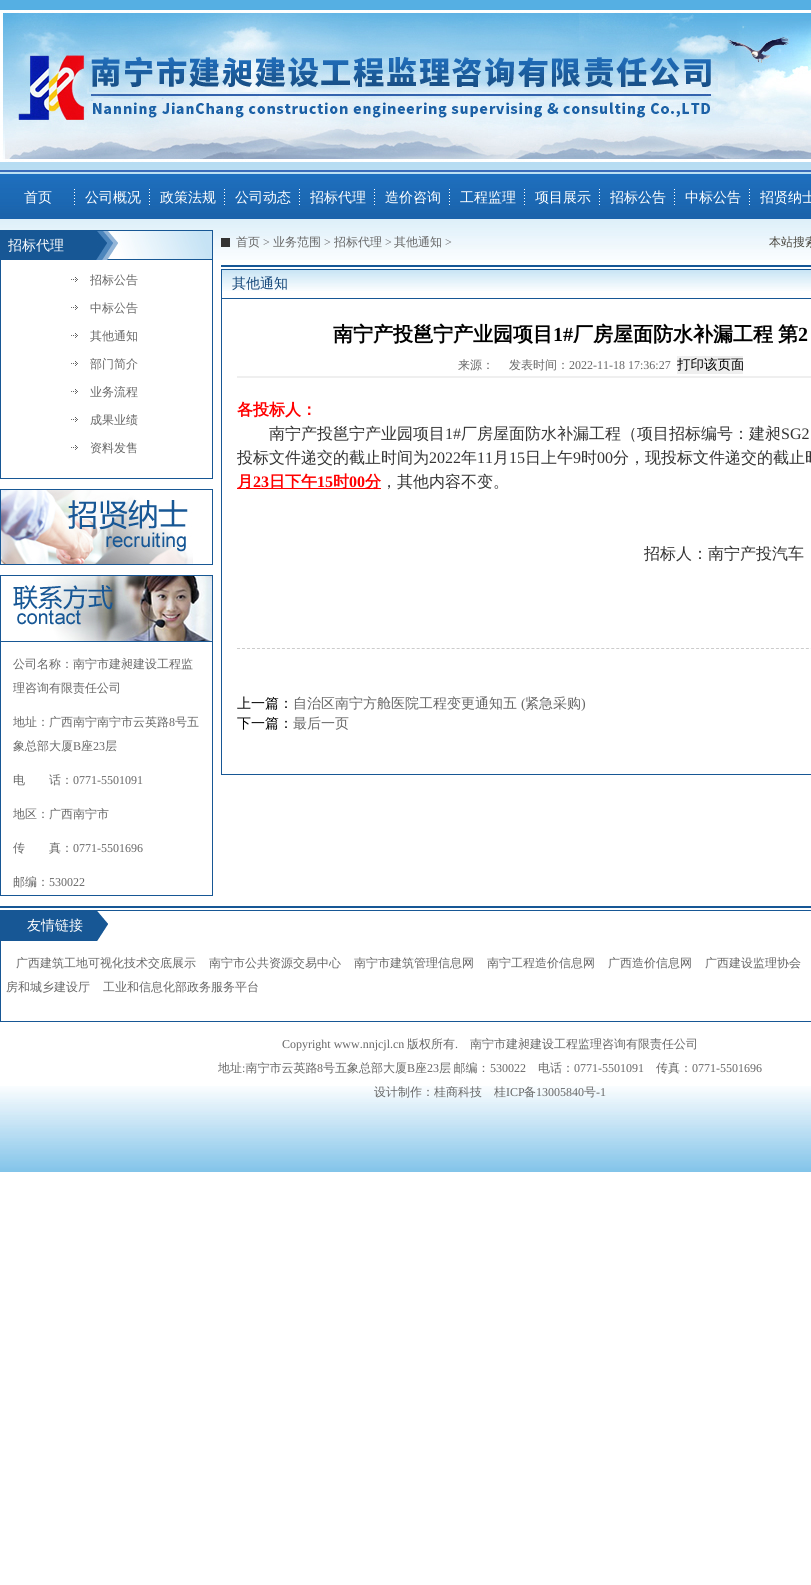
import math
import cairocffi as cairo

surface = cairo.ImageSurface(cairo.FORMAT_RGB24, 811, 1585)
cr = cairo.Context(surface)
options = cairo.FontOptions()
options.set_hint_metrics(cairo.HINT_METRICS_OFF)
options.set_hint_style(cairo.HINT_STYLE_NONE)
cr.set_font_options(options)
cr.set_miter_limit(4)


def use_color(code):
    cr.set_source_rgb(*(v / 255 for v in bytes.fromhex(code[-6:])))


def spaced_text(x, y, s, letter, word):
    cr.move_to(x, y)
    for ch in s:
        cr.show_text(ch)
        cr.rel_move_to(letter + word * (ch == ' '), 0)


def picture(path, x, y, w, h):
    cr.save()
    cr.set_source_surface(cairo.ImageSurface.create_from_png(path), x, y)
    cr.rectangle(x, y, w, h)
    cr.fill()
    cr.restore()


use_color("#ffffff")
cr.paint()
picture("img1.png", 0, 0, 811, 260)
picture("img2.png", 0, 10, 811, 152)
picture("img3.png", 74, 189, 1, 16)
cr.select_font_face("WenQuanYi Zen Hei Medium")
cr.set_font_size(14)
use_color("#ffffff")
cr.move_to(24, 202)
cr.show_text("首页")
picture("img3.png", 149, 189, 1, 16)
cr.move_to(85, 202)
cr.show_text("公司概况")
picture("img3.png", 224, 189, 1, 16)
cr.move_to(160, 202)
cr.show_text("政策法规")
picture("img3.png", 299, 189, 1, 16)
cr.move_to(235, 202)
cr.show_text("公司动态")
picture("img3.png", 374, 189, 1, 16)
cr.move_to(310, 202)
cr.show_text("招标代理")
picture("img3.png", 449, 189, 1, 16)
cr.move_to(385, 202)
cr.show_text("造价咨询")
picture("img3.png", 524, 189, 1, 16)
cr.move_to(460, 202)
cr.show_text("工程监理")
picture("img3.png", 599, 189, 1, 16)
cr.move_to(535, 202)
cr.show_text("项目展示")
picture("img3.png", 674, 189, 1, 16)
cr.move_to(610, 202)
cr.show_text("招标公告")
picture("img3.png", 749, 189, 1, 16)
cr.move_to(685, 202)
cr.show_text("中标公告")
cr.move_to(760, 202)
cr.show_text("招贤纳士")
cr.rectangle(0.5, 230.5, 212, 248)
use_color("#175795")
cr.set_line_width(1)
cr.stroke()
picture("img4.png", 1, 231, 211, 29)
use_color("#ffffff")
cr.move_to(8, 250)
cr.show_text("招标代理")
picture("img5.png", 71, 277, 7, 5)
cr.set_font_size(12)
use_color("#666666")
cr.move_to(90, 284)
cr.show_text("招标公告")
picture("img5.png", 71, 305, 7, 5)
cr.move_to(90, 312)
cr.show_text("中标公告")
picture("img5.png", 71, 333, 7, 5)
cr.move_to(90, 340)
cr.show_text("其他通知")
picture("img5.png", 71, 361, 7, 5)
cr.move_to(90, 368)
cr.show_text("部门简介")
picture("img5.png", 71, 389, 7, 5)
cr.move_to(90, 396)
cr.show_text("业务流程")
picture("img5.png", 71, 417, 7, 5)
cr.move_to(90, 424)
cr.show_text("成果业绩")
picture("img5.png", 71, 445, 7, 5)
cr.move_to(90, 452)
cr.show_text("资料发售")
picture("img6.png", 0, 489, 213, 76)
picture("img7.png", 0, 575, 213, 67)
use_color("#175795")
cr.rectangle(212, 642, 1, 254)
cr.fill()
cr.rectangle(0, 895, 213, 1)
cr.fill()
cr.rectangle(0, 642, 1, 254)
cr.fill()
use_color("#666666")
cr.move_to(13, 668)
cr.show_text("公司名称：南宁市建昶建设工程监")
cr.move_to(13, 692)
cr.show_text("理咨询有限责任公司")
cr.move_to(13, 726)
cr.show_text("地址：广西南宁南宁市云英路")
cr.select_font_face("Liberation Serif")
cr.move_to(169, 726)
cr.show_text("8")
cr.select_font_face("WenQuanYi Zen Hei Medium")
cr.move_to(175, 726)
cr.show_text("号五")
cr.move_to(13, 750)
cr.show_text("象总部大厦")
cr.select_font_face("Liberation Serif")
cr.move_to(73, 750)
cr.show_text("B")
cr.select_font_face("WenQuanYi Zen Hei Medium")
cr.move_to(81, 750)
cr.show_text("座")
cr.select_font_face("Liberation Serif")
cr.move_to(93, 750)
cr.show_text("23")
cr.select_font_face("WenQuanYi Zen Hei Medium")
cr.move_to(105, 750)
cr.show_text("层")
cr.move_to(13, 784)
cr.show_text("电　　话：")
cr.select_font_face("Liberation Serif")
cr.move_to(73, 784)
cr.show_text("0771-5501091")
cr.select_font_face("WenQuanYi Zen Hei Medium")
cr.move_to(13, 818)
cr.show_text("地区：广西南宁市")
cr.move_to(13, 852)
cr.show_text("传　　真：")
cr.select_font_face("Liberation Serif")
cr.move_to(73, 852)
cr.show_text("0771-5501696")
cr.select_font_face("WenQuanYi Zen Hei Medium")
cr.move_to(13, 886)
cr.show_text("邮编：")
cr.select_font_face("Liberation Serif")
cr.move_to(49, 886)
cr.show_text("530022")
use_color("#333333")
cr.rectangle(221, 238, 9, 9)
cr.fill()
cr.select_font_face("WenQuanYi Zen Hei Medium")
use_color("#666666")
cr.move_to(236, 246)
cr.show_text("首页")
cr.select_font_face("Liberation Serif")
cr.move_to(263, 246)
cr.show_text(">")
cr.select_font_face("WenQuanYi Zen Hei Medium")
cr.move_to(273, 246)
cr.show_text("业务范围")
cr.select_font_face("Liberation Serif")
cr.move_to(324, 246)
cr.show_text(">")
cr.select_font_face("WenQuanYi Zen Hei Medium")
cr.move_to(334, 246)
cr.show_text("招标代理")
cr.select_font_face("Liberation Serif")
cr.move_to(385, 246)
cr.show_text(">")
cr.select_font_face("WenQuanYi Zen Hei Medium")
cr.move_to(394, 246)
cr.show_text("其他通知")
cr.select_font_face("Liberation Serif")
cr.move_to(445, 246)
cr.show_text(">")
cr.select_font_face("WenQuanYi Zen Hei Medium")
use_color("#48453d")
cr.move_to(769, 246)
cr.show_text("本站搜索")
use_color("#175795")
cr.rectangle(221, 265, 590, 2)
cr.fill()
cr.rectangle(221.5, 269.5, 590, 505)
cr.stroke()
picture("img8.png", 222, 270, 589, 21)
cr.rectangle(222, 298, 589, 1)
cr.fill()
cr.set_font_size(14)
use_color("#134679")
cr.move_to(232, 288)
cr.show_text("其他通知")
cr.select_font_face("WenQuanYi Zen Hei", cairo.FONT_SLANT_NORMAL, cairo.FONT_WEIGHT_BOLD)
cr.set_font_size(20)
use_color("#000000")
cr.move_to(333, 341)
cr.show_text("南宁产投邕宁产业园项目")
cr.select_font_face("Liberation Serif", cairo.FONT_SLANT_NORMAL, cairo.FONT_WEIGHT_BOLD)
cr.move_to(553, 341)
cr.show_text("1#")
cr.select_font_face("WenQuanYi Zen Hei", cairo.FONT_SLANT_NORMAL, cairo.FONT_WEIGHT_BOLD)
spaced_text(573, 341, "厂房屋面防水补漏工程 第", 0, -1)
cr.select_font_face("Liberation Serif", cairo.FONT_SLANT_NORMAL, cairo.FONT_WEIGHT_BOLD)
cr.move_to(798, 341)
cr.show_text("2")
use_color("#efefef")
cr.rectangle(237, 376, 574, 2)
cr.fill()
cr.select_font_face("WenQuanYi Zen Hei Medium")
cr.set_font_size(12)
use_color("#666666")
cr.move_to(458, 369)
cr.show_text("来源：")
cr.move_to(509, 369)
cr.show_text("发表时间：")
cr.select_font_face("Liberation Serif")
cr.move_to(569, 369)
cr.show_text("2022-11-18 17:36:27")
use_color("#efefef")
cr.rectangle(677, 356, 66, 18)
cr.fill()
cr.save()
cr.rectangle(677, 356, 66, 18)
cr.clip()
cr.select_font_face("WenQuanYi Zen Hei Medium")
cr.set_font_size(13.5)
use_color("#000000")
cr.move_to(677, 369)
cr.show_text("打印该页面")
cr.restore()
cr.new_path()
cr.move_to(237, 648.5)
cr.line_to(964, 648.5)
use_color("#cccccc")
cr.set_dash([3, 1.99])
cr.stroke()
cr.select_font_face("WenQuanYi Zen Hei", cairo.FONT_SLANT_NORMAL, cairo.FONT_WEIGHT_BOLD)
cr.set_font_size(16)
use_color("#ff0000")
cr.move_to(237, 415)
cr.show_text("各投标人：")
cr.select_font_face("WenQuanYi Zen Hei Medium")
use_color("#333333")
cr.move_to(269, 439)
cr.show_text("南宁产投邕宁产业园项目")
cr.select_font_face("Liberation Serif")
cr.move_to(445, 439)
cr.show_text("1#")
cr.select_font_face("WenQuanYi Zen Hei Medium")
cr.move_to(461, 439)
cr.show_text("厂房屋面防水补漏工程（项目招标编号：建昶")
cr.select_font_face("Liberation Serif")
cr.move_to(781, 439)
cr.show_text("SG2")
cr.select_font_face("WenQuanYi Zen Hei Medium")
cr.move_to(237, 463)
cr.show_text("投标文件递交的截止时间为")
cr.select_font_face("Liberation Serif")
cr.move_to(429, 463)
cr.show_text("2022")
cr.select_font_face("WenQuanYi Zen Hei Medium")
cr.move_to(461, 463)
cr.show_text("年")
cr.select_font_face("Liberation Serif")
cr.move_to(477, 463)
cr.show_text("11")
cr.select_font_face("WenQuanYi Zen Hei Medium")
cr.move_to(493, 463)
cr.show_text("月")
cr.select_font_face("Liberation Serif")
cr.move_to(509, 463)
cr.show_text("15")
cr.select_font_face("WenQuanYi Zen Hei Medium")
cr.move_to(525, 463)
cr.show_text("日上午")
cr.select_font_face("Liberation Serif")
cr.move_to(573, 463)
cr.show_text("9")
cr.select_font_face("WenQuanYi Zen Hei Medium")
cr.move_to(581, 463)
cr.show_text("时")
cr.select_font_face("Liberation Serif")
cr.move_to(597, 463)
cr.show_text("00")
cr.select_font_face("WenQuanYi Zen Hei Medium")
cr.move_to(613, 463)
cr.show_text("分，现投标文件递交的截止时")
use_color("#ff0000")
cr.rectangle(237, 488, 144, 1)
cr.fill()
cr.select_font_face("WenQuanYi Zen Hei", cairo.FONT_SLANT_NORMAL, cairo.FONT_WEIGHT_BOLD)
cr.move_to(237, 487)
cr.show_text("月")
cr.select_font_face("Liberation Serif", cairo.FONT_SLANT_NORMAL, cairo.FONT_WEIGHT_BOLD)
cr.move_to(253, 487)
cr.show_text("23")
cr.select_font_face("WenQuanYi Zen Hei", cairo.FONT_SLANT_NORMAL, cairo.FONT_WEIGHT_BOLD)
cr.move_to(269, 487)
cr.show_text("日下午")
cr.select_font_face("Liberation Serif", cairo.FONT_SLANT_NORMAL, cairo.FONT_WEIGHT_BOLD)
cr.move_to(317, 487)
cr.show_text("15")
cr.select_font_face("WenQuanYi Zen Hei", cairo.FONT_SLANT_NORMAL, cairo.FONT_WEIGHT_BOLD)
cr.move_to(333, 487)
cr.show_text("时")
cr.select_font_face("Liberation Serif", cairo.FONT_SLANT_NORMAL, cairo.FONT_WEIGHT_BOLD)
cr.move_to(349, 487)
cr.show_text("00")
cr.select_font_face("WenQuanYi Zen Hei", cairo.FONT_SLANT_NORMAL, cairo.FONT_WEIGHT_BOLD)
cr.move_to(365, 487)
cr.show_text("分")
cr.select_font_face("WenQuanYi Zen Hei Medium")
use_color("#333333")
cr.move_to(381, 487)
cr.show_text("，其他内容不变。")
cr.move_to(644, 559)
cr.show_text("招标人：南宁产投汽车")
cr.set_font_size(14)
use_color("#000000")
cr.move_to(237, 708)
cr.show_text("上一篇：")
use_color("#666666")
cr.move_to(293, 708)
cr.show_text("自治区南宁方舱医院工程变更通知五")
cr.select_font_face("Liberation Serif")
cr.move_to(521, 708)
cr.show_text("(")
cr.select_font_face("WenQuanYi Zen Hei Medium")
cr.move_to(525, 708)
cr.show_text("紧急采购")
cr.select_font_face("Liberation Serif")
cr.move_to(581, 708)
cr.show_text(")")
cr.select_font_face("WenQuanYi Zen Hei Medium")
use_color("#000000")
cr.move_to(237, 728)
cr.show_text("下一篇：")
use_color("#666666")
cr.move_to(293, 728)
cr.show_text("最后一页")
use_color("#175795")
cr.rectangle(0, 906, 811, 2)
cr.fill()
cr.rectangle(0.5, 910.5, 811, 111)
cr.set_dash([])
cr.stroke()
picture("img9.png", 1, 911, 107, 30)
use_color("#ffffff")
cr.move_to(27, 930)
cr.show_text("友情链接")
cr.set_font_size(12)
use_color("#666666")
cr.move_to(16, 967)
cr.show_text("广西建筑工地可视化技术交底展示")
cr.move_to(209, 967)
cr.show_text("南宁市公共资源交易中心")
cr.move_to(354, 967)
cr.show_text("南宁市建筑管理信息网")
cr.move_to(487, 967)
cr.show_text("南宁工程造价信息网")
cr.move_to(608, 967)
cr.show_text("广西造价信息网")
cr.move_to(705, 967)
cr.show_text("广西建设监理协会")
cr.move_to(6, 991)
cr.show_text("房和城乡建设厅")
cr.move_to(103, 991)
cr.show_text("工业和信息化部政务服务平台")
picture("img10.png", 0, 1086, 811, 86)
cr.select_font_face("Liberation Serif")
cr.move_to(282, 1048)
cr.show_text("Copyright www.nnjcjl.cn")
cr.select_font_face("WenQuanYi Zen Hei Medium")
cr.move_to(407, 1048)
cr.show_text("版权所有")
cr.select_font_face("Liberation Serif")
cr.move_to(455, 1048)
cr.show_text(".")
cr.select_font_face("WenQuanYi Zen Hei Medium")
cr.move_to(470, 1048)
cr.show_text("南宁市建昶建设工程监理咨询有限责任公司")
cr.move_to(218, 1072)
cr.show_text("地址 南宁市云英路")
cr.select_font_face("Liberation Serif")
cr.move_to(317, 1072)
cr.show_text("8")
cr.select_font_face("WenQuanYi Zen Hei Medium")
cr.move_to(323, 1072)
cr.show_text("号五象总部大厦")
cr.select_font_face("Liberation Serif")
cr.move_to(407, 1072)
cr.show_text("B")
cr.select_font_face("WenQuanYi Zen Hei Medium")
cr.move_to(415, 1072)
cr.show_text("座")
cr.select_font_face("Liberation Serif")
cr.move_to(427, 1072)
cr.show_text("23")
cr.select_font_face("WenQuanYi Zen Hei Medium")
spaced_text(439, 1072, "层 邮编：", 0, -1)
cr.select_font_face("Liberation Serif")
cr.move_to(490, 1072)
cr.show_text("530022")
cr.select_font_face("WenQuanYi Zen Hei Medium")
cr.move_to(538, 1072)
cr.show_text("电话：")
cr.select_font_face("Liberation Serif")
cr.move_to(574, 1072)
cr.show_text("0771-5501091")
cr.select_font_face("WenQuanYi Zen Hei Medium")
cr.move_to(656, 1072)
cr.show_text("传真：")
cr.select_font_face("Liberation Serif")
cr.move_to(692, 1072)
cr.show_text("0771-5501696")
cr.move_to(242, 1072)
cr.show_text(":")
cr.select_font_face("WenQuanYi Zen Hei Medium")
cr.move_to(374, 1096)
cr.show_text("设计制作：桂商科技")
cr.move_to(494, 1096)
cr.show_text("桂")
cr.select_font_face("Liberation Serif")
cr.move_to(506, 1096)
cr.show_text("ICP")
cr.select_font_face("WenQuanYi Zen Hei Medium")
cr.move_to(524, 1096)
cr.show_text("备")
cr.select_font_face("Liberation Serif")
cr.move_to(536, 1096)
cr.show_text("13005840")
cr.select_font_face("WenQuanYi Zen Hei Medium")
cr.move_to(584, 1096)
cr.show_text("号")
cr.select_font_face("Liberation Serif")
cr.move_to(596, 1096)
cr.show_text("-1")
surface.write_to_png("result.png")
